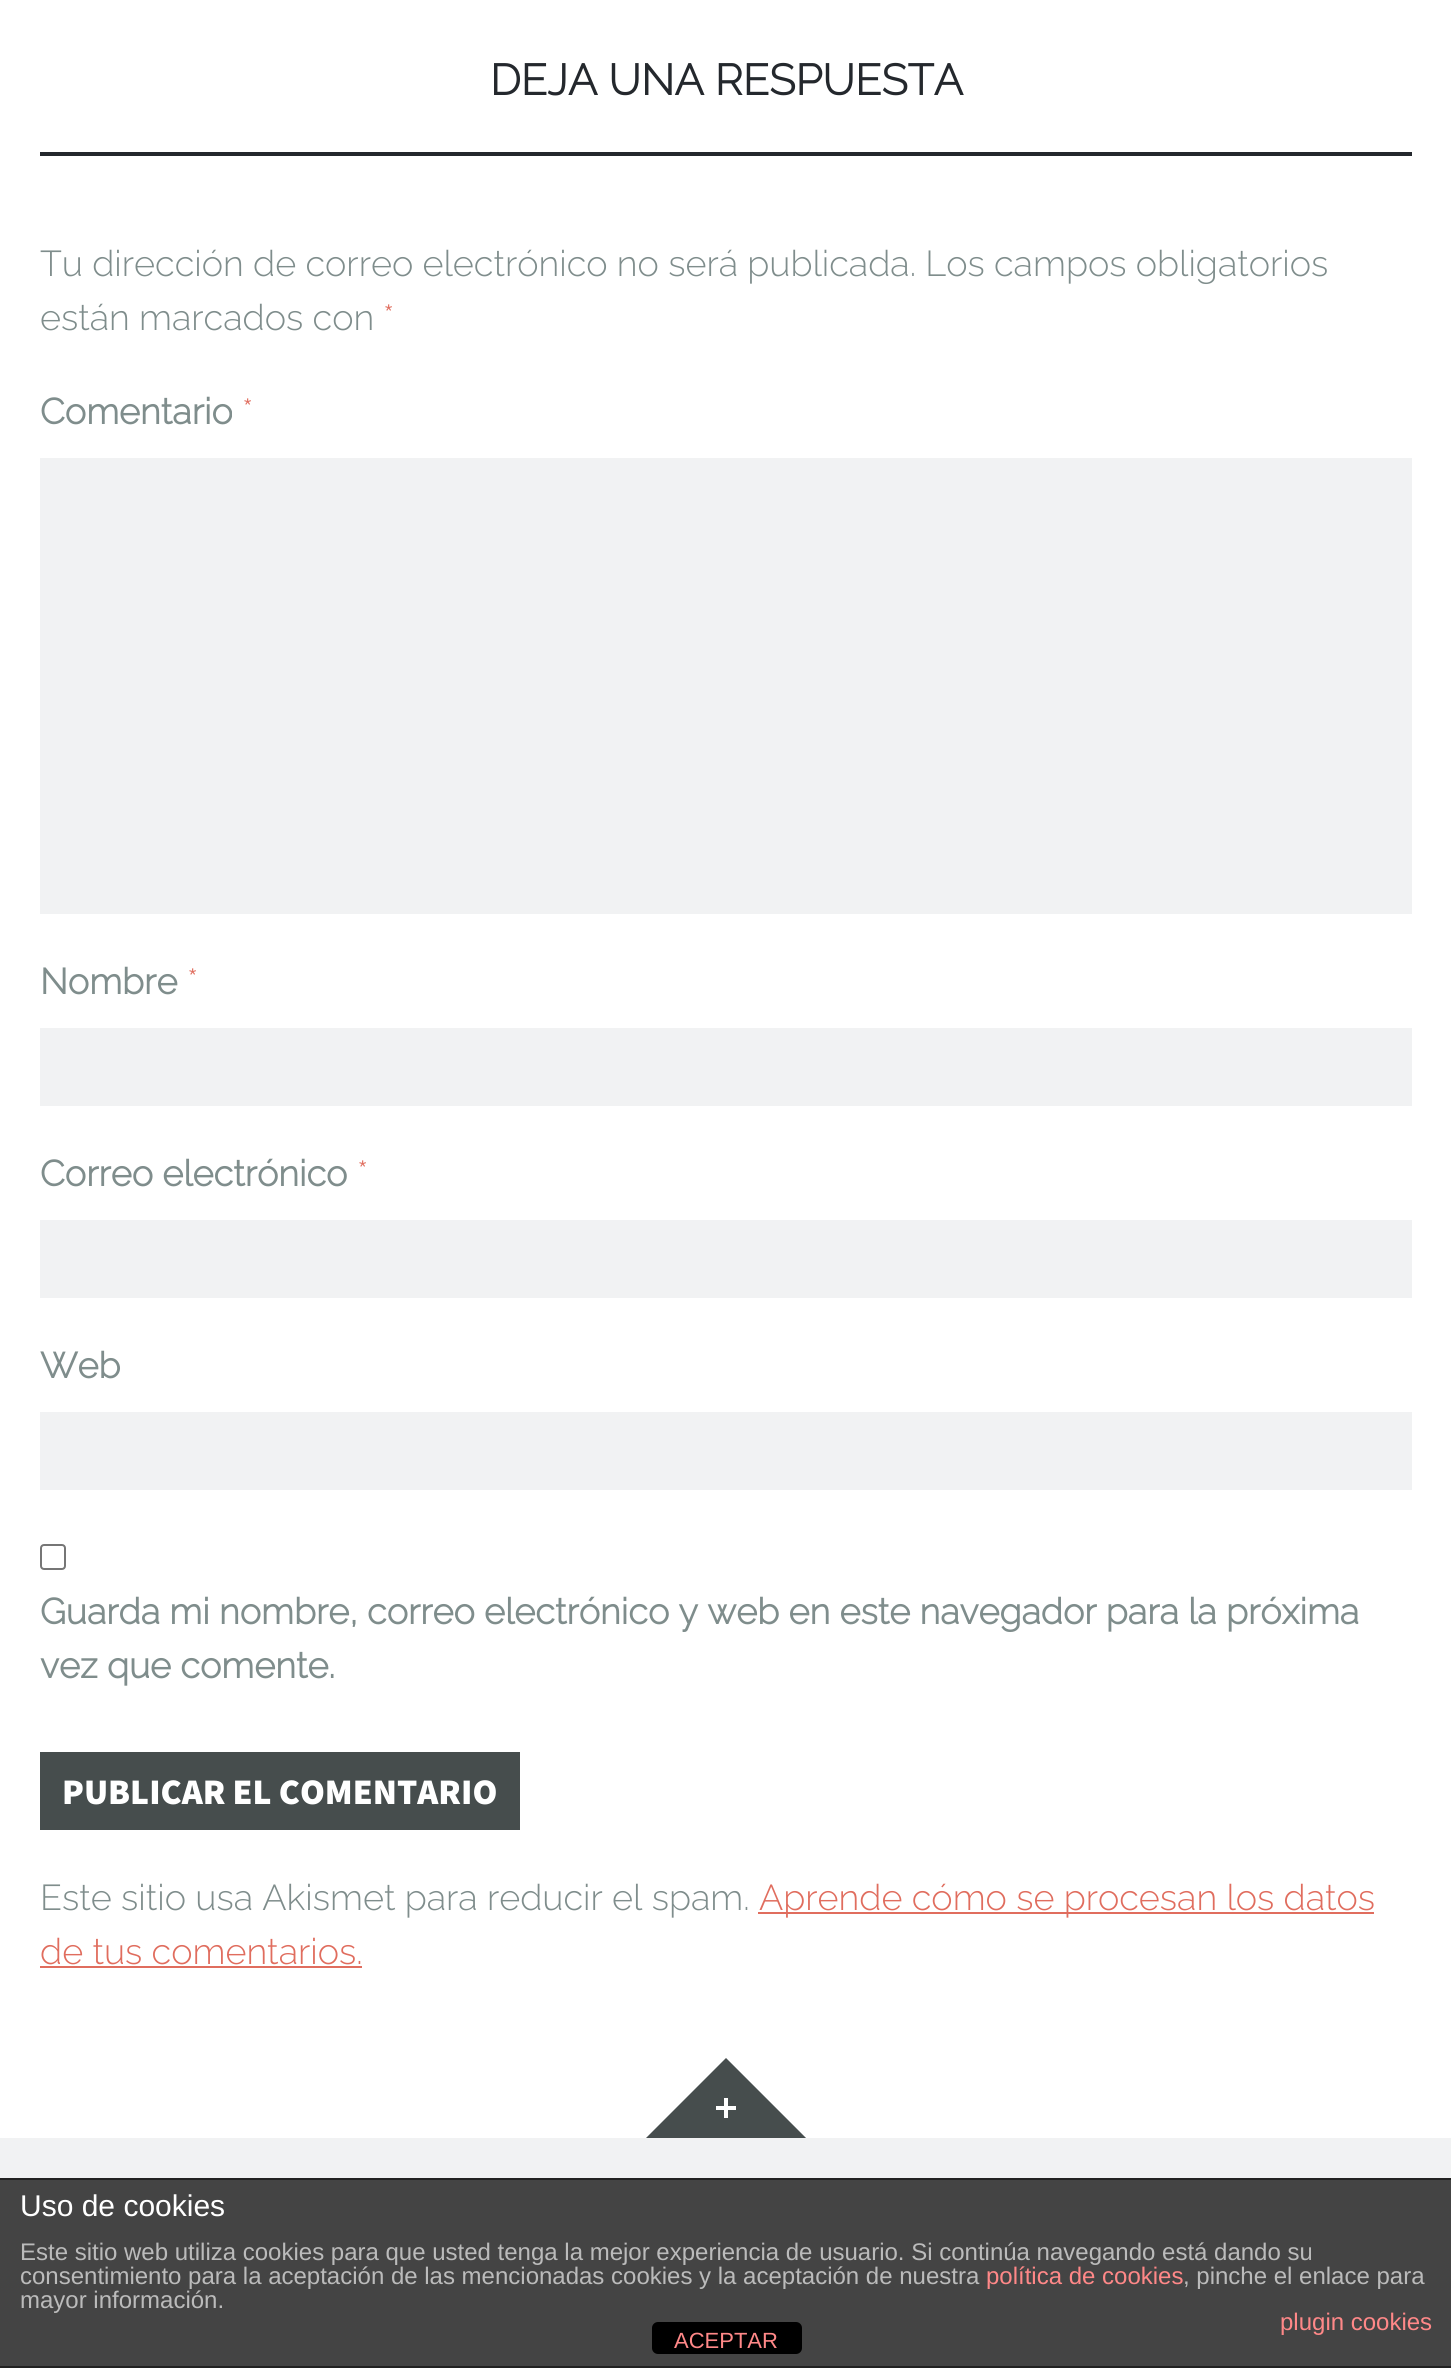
import math
import cairocffi as cairo

surface = cairo.ImageSurface(cairo.FORMAT_RGB24, 1451, 2368)
cr = cairo.Context(surface)
options = cairo.FontOptions()
options.set_hint_metrics(cairo.HINT_METRICS_OFF)
options.set_hint_style(cairo.HINT_STYLE_NONE)
cr.set_font_options(options)
cr.set_miter_limit(4)


def use_color(code):
    cr.set_source_rgb(*(v / 255 for v in bytes.fromhex(code[-6:])))


def round_rect(x, y, w, h, r):
    cr.new_sub_path()
    for i, (u, v) in enumerate([(x + w - r, y + h - r), (x + r, y + h - r), (x + r, y + r), (x + w - r, y + r)]):
        cr.arc(u, v, r, i * math.pi / 2, (i + 1) * math.pi / 2)
    cr.close_path()


def picture(path, x, y, w, h):
    cr.save()
    cr.set_source_surface(cairo.ImageSurface.create_from_png(path), x, y)
    cr.rectangle(x, y, w, h)
    cr.fill()
    cr.restore()


use_color("#ffffff")
cr.paint()
cr.select_font_face("Raleway", cairo.FONT_SLANT_NORMAL, cairo.FONT_WEIGHT_BOLD)
cr.set_font_size(43.25)
use_color("#24282d")
cr.move_to(490, 95)
cr.show_text("DEJA UNA RESPUESTA")
cr.rectangle(40, 152, 1372, 4)
cr.fill()
cr.select_font_face("Raleway Thin")
cr.set_font_size(36)
use_color("#7f8d8c")
cr.move_to(40, 276)
cr.show_text("Tu dirección de correo electrónico no será publicada. Los campos obligatorios")
cr.move_to(40, 330)
cr.show_text("están marcados con")
use_color("#e06d5e")
cr.move_to(383, 330)
cr.show_text("*")
cr.select_font_face("Raleway", cairo.FONT_SLANT_NORMAL, cairo.FONT_WEIGHT_BOLD)
use_color("#7f8d8c")
cr.move_to(40, 424)
cr.show_text("Comentario")
cr.select_font_face("Raleway Thin")
use_color("#e06d5e")
cr.move_to(242, 424)
cr.show_text("*")
use_color("#f1f2f3")
cr.rectangle(40, 458, 1372, 456)
cr.fill()
cr.select_font_face("Raleway", cairo.FONT_SLANT_NORMAL, cairo.FONT_WEIGHT_BOLD)
use_color("#7f8d8c")
cr.move_to(40, 994)
cr.show_text("Nombre")
cr.select_font_face("Raleway Thin")
use_color("#e06d5e")
cr.move_to(187, 994)
cr.show_text("*")
use_color("#f1f2f3")
cr.rectangle(40, 1028, 1372, 78)
cr.fill()
cr.select_font_face("Raleway", cairo.FONT_SLANT_NORMAL, cairo.FONT_WEIGHT_BOLD)
use_color("#7f8d8c")
cr.move_to(40, 1186)
cr.show_text("Correo electrónico")
cr.select_font_face("Raleway Thin")
use_color("#e06d5e")
cr.move_to(357, 1186)
cr.show_text("*")
use_color("#f1f2f3")
cr.rectangle(40, 1220, 1372, 78)
cr.fill()
cr.select_font_face("Raleway", cairo.FONT_SLANT_NORMAL, cairo.FONT_WEIGHT_BOLD)
use_color("#7f8d8c")
cr.move_to(40, 1378)
cr.show_text("Web")
use_color("#f1f2f3")
cr.rectangle(40, 1412, 1372, 78)
cr.fill()
round_rect(41, 1545, 24, 24, 3)
use_color("#767676")
cr.stroke()
use_color("#7f8d8c")
cr.move_to(40, 1624)
cr.show_text("Guarda mi nombre, correo electrónico y web en este navegador para la próxima")
cr.move_to(40, 1678)
cr.show_text("vez que comente.")
use_color("#464d4d")
cr.rectangle(40, 1752, 480, 78)
cr.fill()
cr.select_font_face("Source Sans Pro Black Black")
use_color("#ffffff")
cr.move_to(62, 1804)
cr.show_text("PUBLICAR EL COMENTARIO")
cr.select_font_face("Raleway Thin")
use_color("#7f8d8c")
cr.move_to(40, 1910)
cr.show_text("Este sitio usa Akismet para reducir el spam.")
use_color("#e06d5e")
cr.rectangle(758, 1912, 616, 2)
cr.fill()
cr.move_to(759, 1910)
cr.show_text("Aprende cómo se procesan los datos")
cr.move_to(40, 1964)
cr.show_text("de tus comentarios.")
cr.rectangle(40, 1966, 322, 2)
cr.fill()
use_color("#464d4d")
cr.new_path()
cr.move_to(806, 2138)
cr.line_to(646, 2138)
cr.line_to(726, 2058)
cr.close_path()
cr.fill()
picture("img1.png", 716, 2098, 20, 20)
use_color("#f1f2f3")
cr.rectangle(0, 2138, 1451, 40)
cr.fill()
use_color("#444444")
cr.rectangle(0, 2180, 1451, 186)
cr.fill()
use_color("#222222")
cr.rectangle(0, 2178, 1451, 2)
cr.fill()
cr.rectangle(0, 2366, 1451, 2)
cr.fill()
cr.select_font_face("Liberation Sans")
cr.set_font_size(30)
use_color("#ffffff")
cr.move_to(20, 2216)
cr.show_text("Uso de cookies")
cr.set_font_size(24)
use_color("#bbbbbb")
cr.move_to(20, 2260)
cr.show_text("Este sitio web utiliza cookies para que usted tenga la mejor experiencia de usuario. Si continúa navegando está dando su")
cr.move_to(20, 2284)
cr.show_text("consentimiento para la aceptación de las mencionadas cookies y la aceptación de nuestra")
use_color("#ff8888")
cr.move_to(986, 2284)
cr.show_text("política de cookies")
use_color("#bbbbbb")
cr.move_to(1183, 2284)
cr.show_text(", pinche el enlace para")
cr.move_to(20, 2308)
cr.show_text("mayor información.")
use_color("#ff8888")
cr.move_to(1280, 2330)
cr.show_text("plugin cookies")
use_color("#000000")
round_rect(652, 2322, 150, 32, 6)
cr.fill()
cr.set_font_size(22)
use_color("#ff8888")
cr.move_to(674, 2348)
cr.show_text("ACEPTAR")
surface.write_to_png("result.png")
